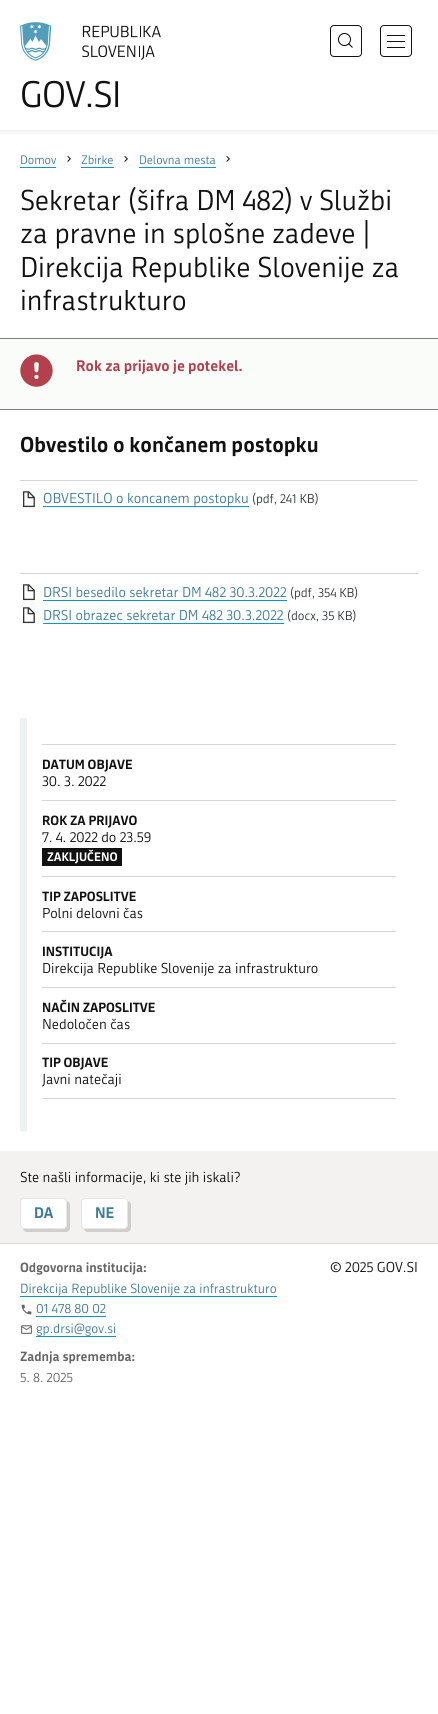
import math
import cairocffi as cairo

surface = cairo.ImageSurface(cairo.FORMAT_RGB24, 438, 1714)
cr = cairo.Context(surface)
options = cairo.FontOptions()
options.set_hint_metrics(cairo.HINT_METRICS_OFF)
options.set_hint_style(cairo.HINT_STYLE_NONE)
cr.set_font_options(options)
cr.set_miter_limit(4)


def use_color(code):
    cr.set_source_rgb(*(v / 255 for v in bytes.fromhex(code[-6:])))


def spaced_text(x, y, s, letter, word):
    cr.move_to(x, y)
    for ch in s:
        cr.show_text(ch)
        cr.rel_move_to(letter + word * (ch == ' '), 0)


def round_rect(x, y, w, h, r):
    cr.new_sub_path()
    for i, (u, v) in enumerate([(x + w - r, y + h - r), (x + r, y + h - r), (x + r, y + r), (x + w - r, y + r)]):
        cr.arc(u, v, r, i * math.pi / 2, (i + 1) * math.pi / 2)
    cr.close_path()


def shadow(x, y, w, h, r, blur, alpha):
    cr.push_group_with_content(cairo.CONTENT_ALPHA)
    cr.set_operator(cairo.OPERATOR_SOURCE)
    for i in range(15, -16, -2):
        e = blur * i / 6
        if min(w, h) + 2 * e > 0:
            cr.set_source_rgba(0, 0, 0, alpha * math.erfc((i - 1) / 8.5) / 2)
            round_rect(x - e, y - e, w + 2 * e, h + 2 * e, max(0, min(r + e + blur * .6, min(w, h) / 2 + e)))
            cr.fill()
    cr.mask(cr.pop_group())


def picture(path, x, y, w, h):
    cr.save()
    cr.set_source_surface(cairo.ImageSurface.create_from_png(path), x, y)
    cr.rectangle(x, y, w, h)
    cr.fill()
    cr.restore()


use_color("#ffffff")
cr.paint()
cr.save()
cr.rectangle(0, 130, 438, 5)
cr.clip()
use_color("#000000")
shadow(0, 0, 438, 130, 0, 5, 0.12)
cr.restore()
round_rect(330.5, 25.5, 31, 31, 3.5)
use_color("#111111")
cr.set_line_width(1)
cr.stroke()
cr.arc(344.5, 39.5, 6, 0, 2 * math.pi)
use_color("#000000")
cr.stroke()
cr.new_path()
cr.move_to(348.5, 43.5)
cr.line_to(352.5, 47.5)
cr.stroke()
round_rect(380.5, 25.5, 31, 31, 3.5)
use_color("#111111")
cr.stroke()
cr.rectangle(387, 47, 18, 1)
cr.fill()
cr.rectangle(387, 35, 18, 1)
cr.fill()
cr.rectangle(387, 41, 18, 1)
cr.fill()
picture("img1.png", 20, 22, 141, 39)
cr.select_font_face("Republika")
cr.set_font_size(36)
spaced_text(20, 107, "GOV.SI", -0.75, 0)
cr.set_font_size(12)
use_color("#3e7c94")
cr.move_to(20, 164)
cr.show_text("Domov")
use_color("#0d96ca")
cr.rectangle(20, 167, 36, 1)
cr.fill()
picture("img2.png", 67, 156, 4, 6)
use_color("#3e7c94")
cr.move_to(81, 164)
cr.show_text("Zbirke")
use_color("#0d96ca")
cr.rectangle(81, 167, 33, 1)
cr.fill()
picture("img2.png", 124, 156, 4, 6)
use_color("#3e7c94")
cr.move_to(139, 164)
cr.show_text("Delovna mesta")
use_color("#0d96ca")
cr.rectangle(139, 167, 77, 1)
cr.fill()
picture("img2.png", 226, 156, 4, 6)
cr.set_font_size(28)
use_color("#111111")
cr.move_to(20, 210)
cr.show_text("Sekretar (šifra DM 482) v Službi")
cr.move_to(20, 243)
cr.show_text("za pravne in splošne zadeve |")
cr.move_to(20, 277)
cr.show_text("Direkcija Republike Slovenije za")
cr.move_to(20, 310)
cr.show_text("infrastrukturo")
use_color("#fafcfa")
cr.rectangle(0, 339, 438, 70)
cr.fill()
use_color("#7d7d7d")
cr.rectangle(0, 338, 438, 1)
cr.fill()
cr.rectangle(0, 409, 438, 1)
cr.fill()
picture("img3.png", 20, 354, 33, 33)
cr.select_font_face("Republika", cairo.FONT_SLANT_NORMAL, cairo.FONT_WEIGHT_BOLD)
cr.set_font_size(15)
use_color("#b2414d")
cr.move_to(76, 371)
cr.show_text("Rok za prijavo je potekel.")
cr.set_font_size(21)
use_color("#111111")
cr.move_to(20, 452)
cr.show_text("Obvestilo o končanem postopku")
use_color("#d7d7d7")
cr.rectangle(20, 480, 398, 1)
cr.fill()
picture("img4.png", 23, 491, 12, 17)
cr.select_font_face("Republika")
cr.set_font_size(14)
use_color("#3e7c94")
cr.move_to(43, 503)
cr.show_text("OBVESTILO o koncanem postopku")
use_color("#0d96ca")
cr.rectangle(43, 506, 206, 1)
cr.fill()
cr.set_font_size(12.5)
use_color("#30383c")
cr.move_to(252, 503)
cr.show_text("(pdf, 241 KB)")
use_color("#d7d7d7")
cr.rectangle(20, 573, 398, 1)
cr.fill()
picture("img4.png", 23, 584, 12, 17)
cr.set_font_size(14)
use_color("#3e7c94")
cr.move_to(43, 597)
cr.show_text("DRSI besedilo sekretar DM 482 30.3.2022")
use_color("#0d96ca")
cr.rectangle(43, 600, 244, 1)
cr.fill()
cr.set_font_size(12.5)
use_color("#30383c")
cr.move_to(290, 597)
cr.show_text("(pdf, 354 KB)")
picture("img4.png", 23, 607, 12, 17)
cr.set_font_size(14)
use_color("#3e7c94")
cr.move_to(43, 620)
cr.show_text("DRSI obrazec sekretar DM 482 30.3.2022")
use_color("#0d96ca")
cr.rectangle(43, 623, 241, 1)
cr.fill()
cr.set_font_size(12.5)
use_color("#30383c")
cr.move_to(287, 620)
cr.show_text("(docx, 35 KB)")
use_color("#ecf2f4")
cr.rectangle(20, 718, 7, 413)
cr.fill()
use_color("#d7d7d7")
cr.rectangle(42, 744, 354, 1)
cr.fill()
cr.rectangle(42, 800, 354, 1)
cr.fill()
cr.select_font_face("Republika", cairo.FONT_SLANT_NORMAL, cairo.FONT_WEIGHT_BOLD)
cr.set_font_size(13)
use_color("#111111")
cr.move_to(42, 769)
cr.show_text("DATUM OBJAVE")
cr.select_font_face("Republika")
cr.set_font_size(14)
cr.move_to(42, 786)
cr.show_text("30. 3. 2022")
use_color("#d7d7d7")
cr.rectangle(42, 876, 354, 1)
cr.fill()
cr.select_font_face("Republika", cairo.FONT_SLANT_NORMAL, cairo.FONT_WEIGHT_BOLD)
cr.set_font_size(13)
use_color("#111111")
cr.move_to(42, 825)
cr.show_text("ROK ZA PRIJAVO")
cr.select_font_face("Republika")
cr.set_font_size(14)
cr.move_to(42, 842)
cr.show_text("7. 4. 2022 do 23.59")
cr.rectangle(42, 848, 80, 18)
cr.fill()
cr.select_font_face("Republika", cairo.FONT_SLANT_NORMAL, cairo.FONT_WEIGHT_BOLD)
cr.set_font_size(12)
use_color("#ffffff")
cr.move_to(47, 861)
cr.show_text("ZAKLJUČENO")
use_color("#d7d7d7")
cr.rectangle(42, 931, 354, 1)
cr.fill()
cr.set_font_size(13)
use_color("#111111")
cr.move_to(42, 901)
cr.show_text("TIP ZAPOSLITVE")
cr.select_font_face("Republika")
cr.set_font_size(14)
cr.move_to(42, 918)
cr.show_text("Polni delovni čas")
use_color("#d7d7d7")
cr.rectangle(42, 987, 354, 1)
cr.fill()
cr.select_font_face("Republika", cairo.FONT_SLANT_NORMAL, cairo.FONT_WEIGHT_BOLD)
cr.set_font_size(13)
use_color("#111111")
cr.move_to(42, 956)
cr.show_text("INSTITUCIJA")
cr.select_font_face("Republika")
cr.set_font_size(14)
cr.move_to(42, 973)
cr.show_text("Direkcija Republike Slovenije za infrastrukturo")
use_color("#d7d7d7")
cr.rectangle(42, 1043, 354, 1)
cr.fill()
cr.select_font_face("Republika", cairo.FONT_SLANT_NORMAL, cairo.FONT_WEIGHT_BOLD)
cr.set_font_size(13)
use_color("#111111")
cr.move_to(42, 1012)
cr.show_text("NAČIN ZAPOSLITVE")
cr.select_font_face("Republika")
cr.set_font_size(14)
cr.move_to(42, 1029)
cr.show_text("Nedoločen čas")
use_color("#d7d7d7")
cr.rectangle(42, 1098, 354, 1)
cr.fill()
cr.select_font_face("Republika", cairo.FONT_SLANT_NORMAL, cairo.FONT_WEIGHT_BOLD)
cr.set_font_size(13)
use_color("#111111")
cr.move_to(42, 1067)
cr.show_text("TIP OBJAVE")
cr.select_font_face("Republika")
cr.set_font_size(14)
cr.move_to(42, 1084)
cr.show_text("Javni natečaji")
use_color("#f3f2f0")
cr.rectangle(0, 1151, 438, 92)
cr.fill()
use_color("#111111")
cr.move_to(20, 1182)
cr.show_text("Ste našli informacije, ki ste jih iskali?")
use_color("#cfcecc")
cr.new_path()
cr.move_to(23, 1229)
cr.curve_to(24, 1231, 25, 1232, 27, 1232)
cr.line_to(66, 1232)
cr.curve_to(68, 1232, 70, 1230, 70, 1228)
cr.line_to(70, 1205)
cr.curve_to(70, 1203, 69, 1202, 67, 1201)
cr.line_to(67, 1217)
cr.curve_to(67, 1232, 66, 1229, 50, 1229)
cr.close_path()
cr.fill()
use_color("#ffffff")
round_rect(20, 1198, 47, 31, 4)
cr.fill()
round_rect(20.5, 1198.5, 46, 30, 3.5)
cr.set_source_rgba(0, 0, 0, 0.1)
cr.stroke()
cr.select_font_face("Republika", cairo.FONT_SLANT_NORMAL, cairo.FONT_WEIGHT_BOLD)
cr.set_font_size(15)
use_color("#3e7c94")
cr.move_to(34, 1218)
cr.show_text("DA")
use_color("#cfcecc")
cr.new_path()
cr.move_to(84, 1229)
cr.curve_to(85, 1231, 86, 1232, 88, 1232)
cr.line_to(127, 1232)
cr.curve_to(129, 1232, 131, 1230, 131, 1228)
cr.line_to(131, 1205)
cr.curve_to(131, 1203, 130, 1202, 128, 1201)
cr.line_to(128, 1217)
cr.curve_to(128, 1232, 127, 1229, 111, 1229)
cr.close_path()
cr.fill()
use_color("#ffffff")
round_rect(81, 1198, 47, 31, 4)
cr.fill()
round_rect(81.5, 1198.5, 46, 30, 3.5)
cr.set_source_rgba(0, 0, 0, 0.1)
cr.stroke()
use_color("#3e7c94")
cr.move_to(95, 1218)
cr.show_text("NE")
use_color("#d7d7d7")
cr.rectangle(0, 1243, 438, 1)
cr.fill()
cr.set_font_size(13)
use_color("#65656a")
cr.move_to(20, 1272)
cr.show_text("Odgovorna institucija:")
cr.select_font_face("Republika")
use_color("#3e7c94")
cr.move_to(20, 1293)
cr.show_text("Direkcija Republike Slovenije za infrastrukturo")
use_color("#0d96ca")
cr.rectangle(20, 1296, 257, 1)
cr.fill()
picture("img5.png", 21, 1304, 11, 11)
use_color("#3e7c94")
cr.move_to(36, 1313)
cr.show_text("01 478 80 02")
use_color("#0d96ca")
cr.rectangle(36, 1316, 70, 1)
cr.fill()
picture("img6.png", 21, 1325, 11, 9)
use_color("#3e7c94")
cr.move_to(36, 1333)
cr.show_text("gp.drsi@gov.si")
use_color("#0d96ca")
cr.rectangle(36, 1336, 80, 1)
cr.fill()
cr.select_font_face("Republika", cairo.FONT_SLANT_NORMAL, cairo.FONT_WEIGHT_BOLD)
use_color("#65656a")
cr.move_to(20, 1361)
cr.show_text("Zadnja sprememba:")
cr.select_font_face("Republika")
cr.move_to(20, 1382)
cr.show_text("5. 8. 2025")
cr.set_font_size(14)
use_color("#111111")
cr.move_to(330, 1272)
cr.show_text("© 2025 GOV.SI")
surface.write_to_png("result.png")
